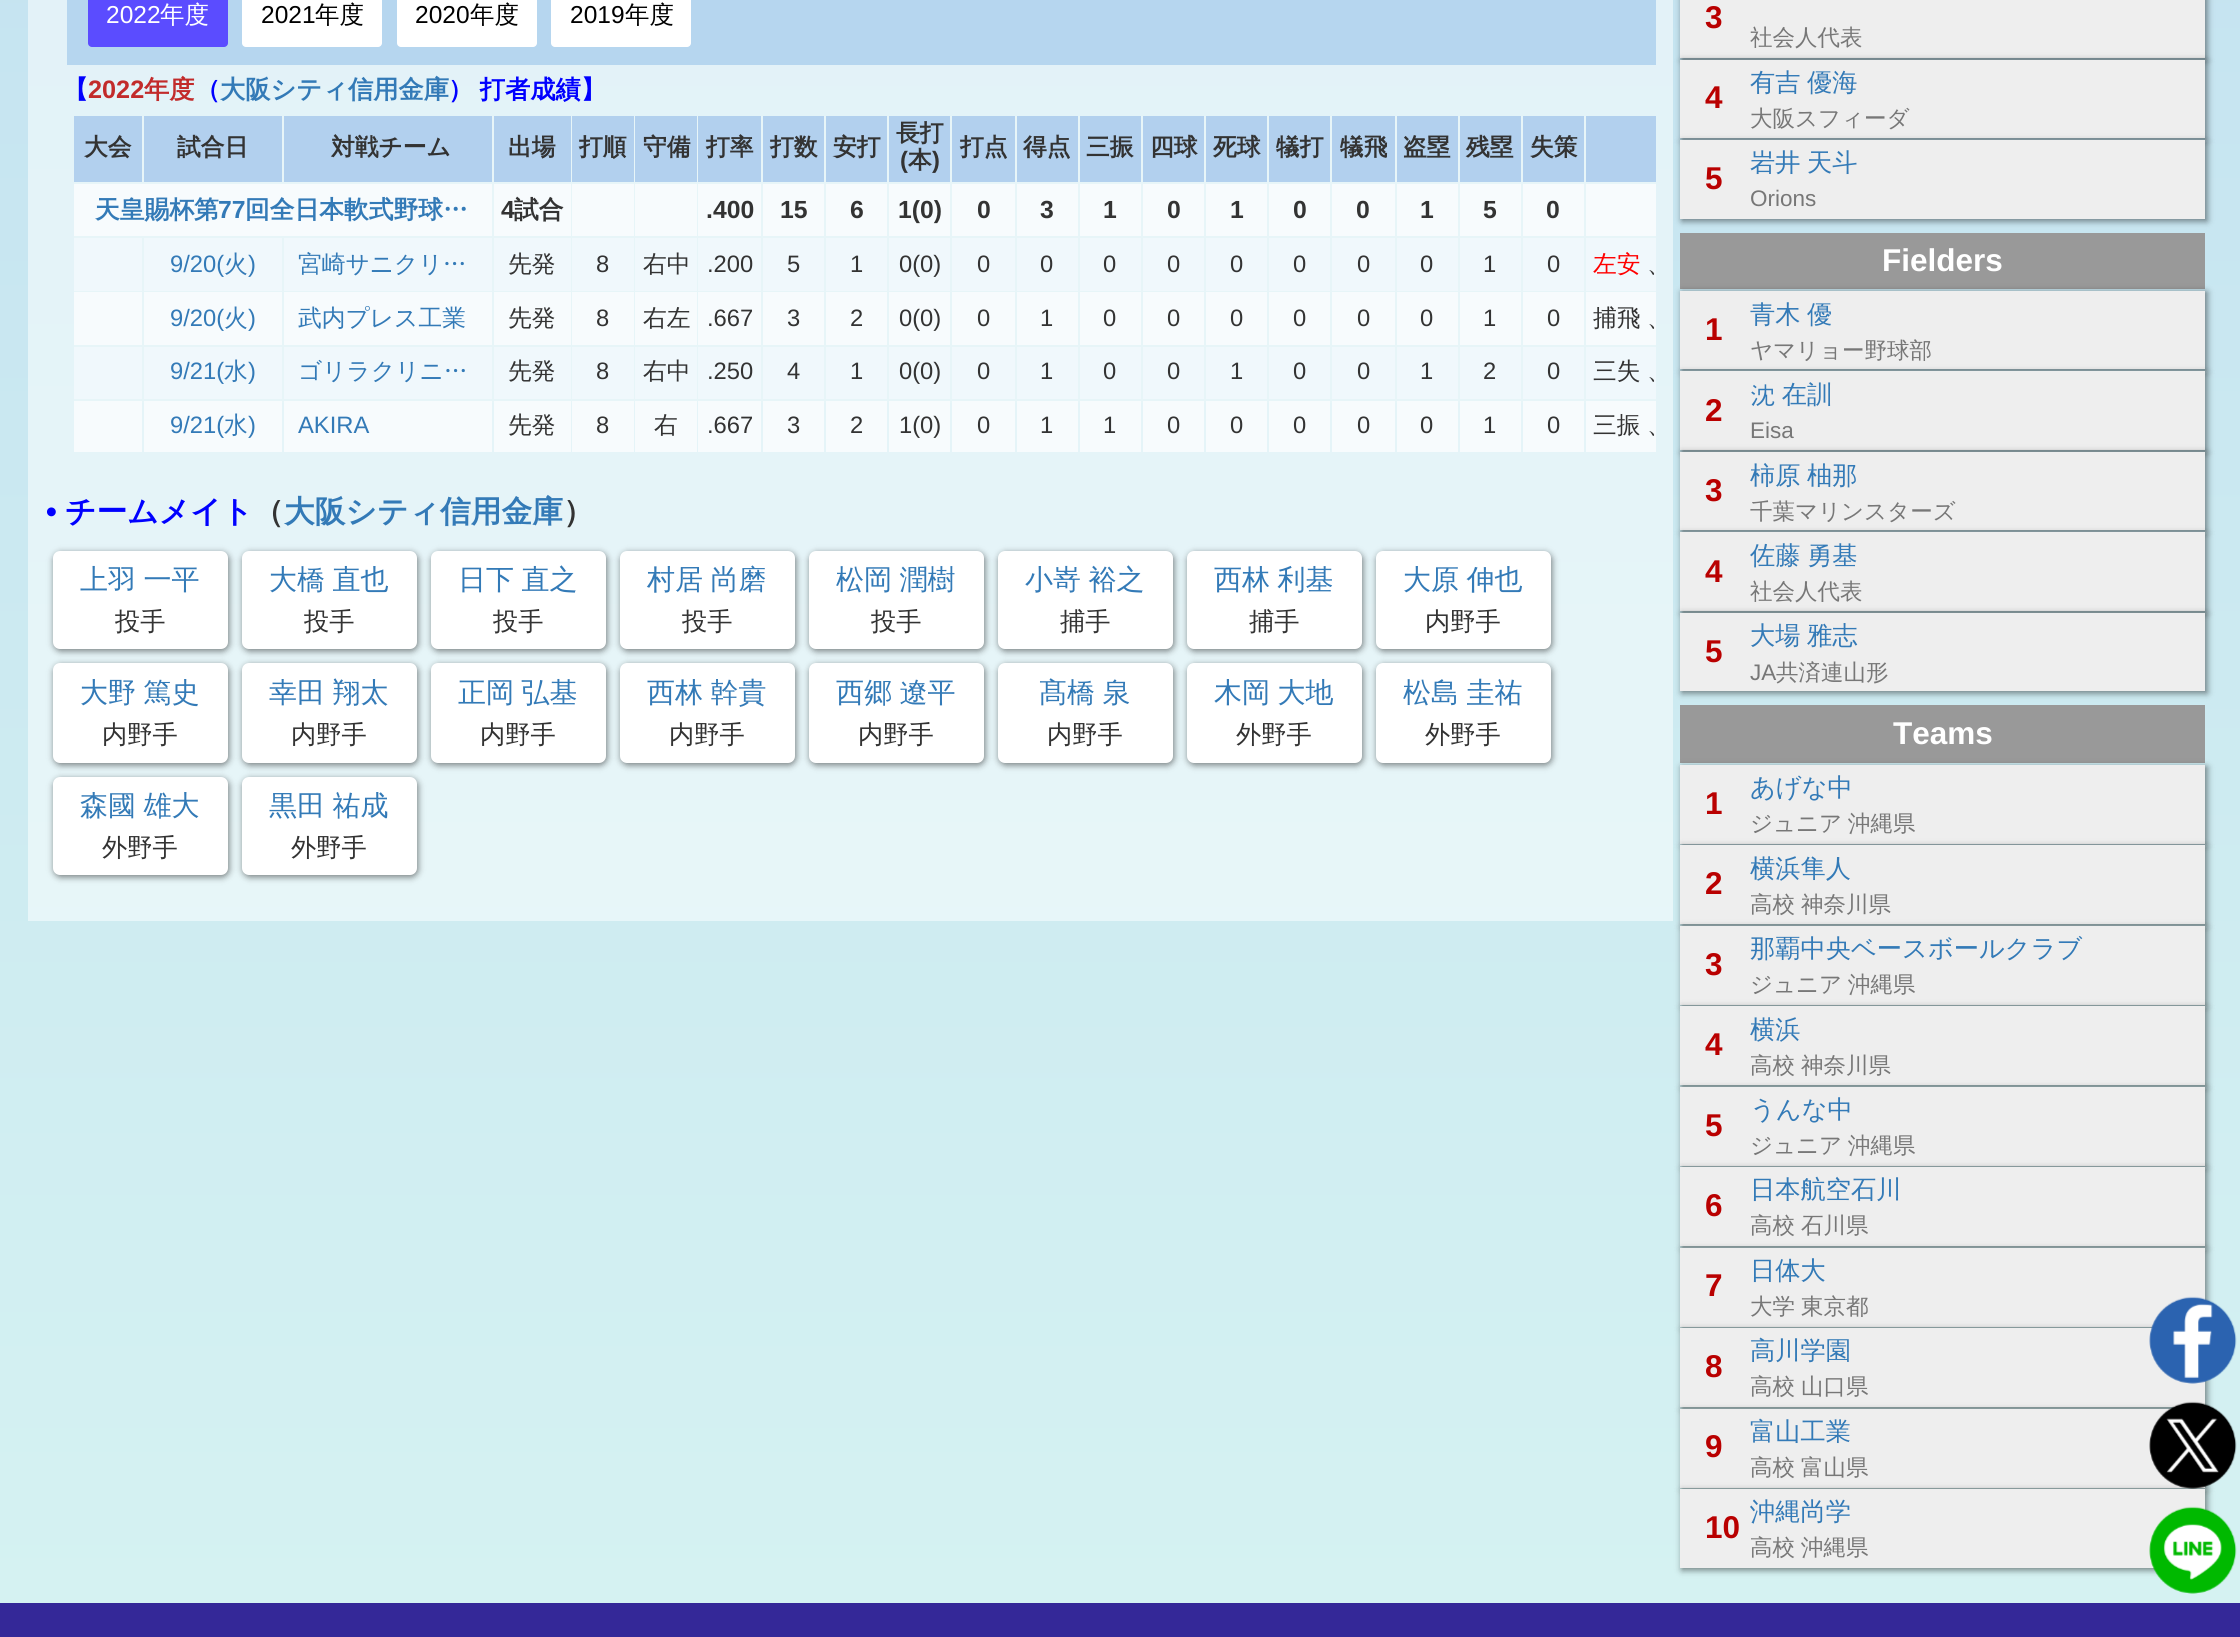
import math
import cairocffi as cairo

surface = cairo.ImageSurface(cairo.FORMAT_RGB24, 2240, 1637)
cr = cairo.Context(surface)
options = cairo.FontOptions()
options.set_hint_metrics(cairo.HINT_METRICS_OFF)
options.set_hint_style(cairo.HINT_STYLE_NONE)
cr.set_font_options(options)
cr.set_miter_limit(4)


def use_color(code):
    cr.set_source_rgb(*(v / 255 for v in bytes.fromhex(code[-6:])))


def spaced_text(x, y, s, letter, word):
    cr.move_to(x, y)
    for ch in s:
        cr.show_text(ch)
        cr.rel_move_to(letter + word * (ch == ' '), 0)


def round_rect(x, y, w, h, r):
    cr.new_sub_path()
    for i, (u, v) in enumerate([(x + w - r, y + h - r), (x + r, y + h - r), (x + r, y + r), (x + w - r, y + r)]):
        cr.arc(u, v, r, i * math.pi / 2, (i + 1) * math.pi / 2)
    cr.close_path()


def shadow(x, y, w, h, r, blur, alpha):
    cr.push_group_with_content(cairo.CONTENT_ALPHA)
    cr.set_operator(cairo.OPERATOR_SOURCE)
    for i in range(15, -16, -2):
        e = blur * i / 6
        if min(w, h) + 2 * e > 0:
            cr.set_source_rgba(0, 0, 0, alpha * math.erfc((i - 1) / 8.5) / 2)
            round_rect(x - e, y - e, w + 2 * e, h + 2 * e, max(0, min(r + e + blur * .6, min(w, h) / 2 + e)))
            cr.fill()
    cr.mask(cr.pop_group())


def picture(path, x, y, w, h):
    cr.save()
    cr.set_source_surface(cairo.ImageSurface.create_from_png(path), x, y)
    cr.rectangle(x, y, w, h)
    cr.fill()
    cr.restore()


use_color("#342898")
cr.paint()
gradient = cairo.LinearGradient(1120, -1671, 1120, 1603)
gradient.add_color_stop_rgba(0, 0.714, 0.839, 0.937, 1)
gradient.add_color_stop_rgba(1, 0.835, 0.949, 0.949, 1)
cr.set_source(gradient)
cr.rectangle(0, 0, 2240, 1603)
cr.fill()
gradient = cairo.LinearGradient(1120, -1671, 1120, 1603)
gradient.add_color_stop_rgba(0, 0.859, 0.922, 0.969, 1)
gradient.add_color_stop_rgba(1, 0.918, 0.976, 0.976, 1)
cr.set_source(gradient)
cr.rectangle(28, 0, 1645, 921)
cr.fill()
use_color("#b6d6ef")
cr.rectangle(67, 0, 1589, 65)
cr.fill()
use_color("#5b4cff")
round_rect(88, -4, 140, 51, 4)
cr.fill()
cr.select_font_face("Liberation Sans")
cr.set_font_size(24.5)
use_color("#ffffff")
cr.move_to(106, 23)
cr.show_text("2022")
cr.select_font_face("WenQuanYi Zen Hei Medium")
cr.move_to(160, 23)
cr.show_text("年度")
round_rect(242, -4, 140, 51, 4)
cr.fill()
cr.select_font_face("Liberation Sans")
use_color("#000000")
cr.move_to(261, 23)
cr.show_text("2021")
cr.select_font_face("WenQuanYi Zen Hei Medium")
cr.move_to(315, 23)
cr.show_text("年度")
use_color("#ffffff")
round_rect(397, -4, 140, 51, 4)
cr.fill()
cr.select_font_face("Liberation Sans")
use_color("#000000")
cr.move_to(415, 23)
cr.show_text("2020")
cr.select_font_face("WenQuanYi Zen Hei Medium")
cr.move_to(470, 23)
cr.show_text("年度")
use_color("#ffffff")
round_rect(551, -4, 140, 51, 4)
cr.fill()
cr.select_font_face("Liberation Sans")
use_color("#000000")
cr.move_to(570, 23)
cr.show_text("2019")
cr.select_font_face("WenQuanYi Zen Hei Medium")
cr.move_to(625, 23)
cr.show_text("年度")
cr.select_font_face("WenQuanYi Zen Hei", cairo.FONT_SLANT_NORMAL, cairo.FONT_WEIGHT_BOLD)
cr.set_font_size(25.25)
use_color("#0000ff")
cr.move_to(63, 98)
cr.show_text("【")
cr.select_font_face("Liberation Sans", cairo.FONT_SLANT_NORMAL, cairo.FONT_WEIGHT_BOLD)
use_color("#c22b2b")
cr.move_to(88, 98)
cr.show_text("2022")
cr.select_font_face("WenQuanYi Zen Hei", cairo.FONT_SLANT_NORMAL, cairo.FONT_WEIGHT_BOLD)
cr.move_to(144, 98)
cr.show_text("年度")
use_color("#0000ff")
cr.move_to(195, 98)
cr.show_text("（")
use_color("#337ab7")
cr.move_to(220, 98)
cr.show_text("大阪シティ信用金庫")
use_color("#0000ff")
spaced_text(448, 98, "） 打者成績】", 0, -1)
use_color("#b2d0ee")
cr.rectangle(74, 116, 68, 66)
cr.fill()
use_color("#e7f5f8")
cr.rectangle(142, 116, 2, 68)
cr.fill()
cr.rectangle(74, 182, 70, 2)
cr.fill()
cr.set_font_size(23.75)
use_color("#333333")
cr.move_to(84, 155)
cr.show_text("大会")
use_color("#b2d0ee")
cr.rectangle(144, 116, 138, 66)
cr.fill()
use_color("#e7f5f8")
cr.rectangle(282, 116, 2, 68)
cr.fill()
cr.rectangle(144, 182, 140, 2)
cr.fill()
use_color("#333333")
cr.move_to(177, 155)
cr.show_text("試合日")
use_color("#b2d0ee")
cr.rectangle(284, 116, 208, 66)
cr.fill()
use_color("#e7f5f8")
cr.rectangle(492, 116, 2, 287)
cr.fill()
cr.rectangle(284, 182, 210, 2)
cr.fill()
use_color("#333333")
cr.move_to(331, 155)
cr.show_text("対戦チーム")
use_color("#b2d0ee")
cr.rectangle(494, 116, 77, 66)
cr.fill()
use_color("#e7f5f8")
cr.rectangle(571, 116, 1, 287)
cr.fill()
cr.rectangle(494, 182, 78, 2)
cr.fill()
use_color("#333333")
cr.move_to(508, 155)
cr.show_text("出場")
use_color("#b2d0ee")
cr.rectangle(572, 116, 62, 66)
cr.fill()
use_color("#e7f5f8")
cr.rectangle(634, 116, 1, 287)
cr.fill()
cr.rectangle(572, 182, 63, 2)
cr.fill()
use_color("#333333")
cr.move_to(579, 155)
cr.show_text("打順")
use_color("#b2d0ee")
cr.rectangle(635, 116, 62, 66)
cr.fill()
use_color("#e7f5f8")
cr.rectangle(697, 116, 1, 287)
cr.fill()
cr.rectangle(635, 182, 63, 2)
cr.fill()
use_color("#333333")
cr.move_to(643, 155)
cr.show_text("守備")
use_color("#b2d0ee")
cr.rectangle(698, 116, 63, 66)
cr.fill()
use_color("#e7f5f8")
cr.rectangle(761, 116, 2, 287)
cr.fill()
cr.rectangle(698, 182, 65, 2)
cr.fill()
use_color("#333333")
cr.move_to(706, 155)
cr.show_text("打率")
use_color("#b2d0ee")
cr.rectangle(763, 116, 61, 66)
cr.fill()
use_color("#e7f5f8")
cr.rectangle(824, 116, 2, 287)
cr.fill()
cr.rectangle(763, 182, 63, 2)
cr.fill()
use_color("#333333")
cr.move_to(770, 155)
cr.show_text("打数")
use_color("#b2d0ee")
cr.rectangle(826, 116, 61, 66)
cr.fill()
use_color("#e7f5f8")
cr.rectangle(887, 116, 2, 287)
cr.fill()
cr.rectangle(826, 182, 63, 2)
cr.fill()
use_color("#333333")
cr.move_to(833, 155)
cr.show_text("安打")
use_color("#b2d0ee")
cr.rectangle(889, 116, 61, 66)
cr.fill()
use_color("#e7f5f8")
cr.rectangle(950, 116, 2, 287)
cr.fill()
cr.rectangle(889, 182, 63, 2)
cr.fill()
use_color("#333333")
cr.move_to(896, 141)
cr.show_text("長打")
cr.select_font_face("Liberation Sans", cairo.FONT_SLANT_NORMAL, cairo.FONT_WEIGHT_BOLD)
cr.move_to(900, 168)
cr.show_text("(")
cr.select_font_face("WenQuanYi Zen Hei", cairo.FONT_SLANT_NORMAL, cairo.FONT_WEIGHT_BOLD)
cr.move_to(908, 168)
cr.show_text("本")
cr.select_font_face("Liberation Sans", cairo.FONT_SLANT_NORMAL, cairo.FONT_WEIGHT_BOLD)
cr.move_to(932, 168)
cr.show_text(")")
use_color("#b2d0ee")
cr.rectangle(952, 116, 63, 66)
cr.fill()
use_color("#e7f5f8")
cr.rectangle(1015, 116, 2, 287)
cr.fill()
cr.rectangle(952, 182, 65, 2)
cr.fill()
cr.select_font_face("WenQuanYi Zen Hei", cairo.FONT_SLANT_NORMAL, cairo.FONT_WEIGHT_BOLD)
use_color("#333333")
cr.move_to(960, 155)
cr.show_text("打点")
use_color("#b2d0ee")
cr.rectangle(1017, 116, 61, 66)
cr.fill()
use_color("#e7f5f8")
cr.rectangle(1078, 116, 2, 287)
cr.fill()
cr.rectangle(1017, 182, 63, 2)
cr.fill()
use_color("#333333")
cr.move_to(1023, 155)
cr.show_text("得点")
use_color("#b2d0ee")
cr.rectangle(1080, 116, 61, 66)
cr.fill()
use_color("#e7f5f8")
cr.rectangle(1141, 116, 2, 287)
cr.fill()
cr.rectangle(1080, 182, 63, 2)
cr.fill()
use_color("#333333")
cr.move_to(1086, 155)
cr.show_text("三振")
use_color("#b2d0ee")
cr.rectangle(1143, 116, 61, 66)
cr.fill()
use_color("#e7f5f8")
cr.rectangle(1204, 116, 2, 287)
cr.fill()
cr.rectangle(1143, 182, 63, 2)
cr.fill()
use_color("#333333")
cr.move_to(1150, 155)
cr.show_text("四球")
use_color("#b2d0ee")
cr.rectangle(1206, 116, 61, 66)
cr.fill()
use_color("#e7f5f8")
cr.rectangle(1267, 116, 2, 287)
cr.fill()
cr.rectangle(1206, 182, 63, 2)
cr.fill()
use_color("#333333")
cr.move_to(1213, 155)
cr.show_text("死球")
use_color("#b2d0ee")
cr.rectangle(1269, 116, 61, 66)
cr.fill()
use_color("#e7f5f8")
cr.rectangle(1330, 116, 2, 287)
cr.fill()
cr.rectangle(1269, 182, 63, 2)
cr.fill()
use_color("#333333")
cr.move_to(1276, 155)
cr.show_text("犠打")
use_color("#b2d0ee")
cr.rectangle(1332, 116, 63, 66)
cr.fill()
use_color("#e7f5f8")
cr.rectangle(1395, 116, 2, 287)
cr.fill()
cr.rectangle(1332, 182, 65, 2)
cr.fill()
use_color("#333333")
cr.move_to(1340, 155)
cr.show_text("犠飛")
use_color("#b2d0ee")
cr.rectangle(1397, 116, 61, 66)
cr.fill()
use_color("#e7f5f8")
cr.rectangle(1458, 116, 2, 287)
cr.fill()
cr.rectangle(1397, 182, 63, 2)
cr.fill()
use_color("#333333")
cr.move_to(1403, 155)
cr.show_text("盗塁")
use_color("#b2d0ee")
cr.rectangle(1460, 116, 61, 66)
cr.fill()
use_color("#e7f5f8")
cr.rectangle(1521, 116, 2, 287)
cr.fill()
cr.rectangle(1460, 182, 63, 2)
cr.fill()
use_color("#333333")
cr.move_to(1466, 155)
cr.show_text("残塁")
use_color("#b2d0ee")
cr.rectangle(1523, 116, 61, 66)
cr.fill()
use_color("#e7f5f8")
cr.rectangle(1584, 116, 2, 287)
cr.fill()
cr.rectangle(1523, 182, 133, 2)
cr.fill()
use_color("#333333")
cr.move_to(1530, 155)
cr.show_text("失策")
use_color("#b2d0ee")
cr.rectangle(1586, 116, 70, 66)
cr.fill()
use_color("#f7fbfd")
cr.rectangle(74, 184, 418, 52)
cr.fill()
use_color("#e7f5f8")
cr.rectangle(74, 236, 420, 2)
cr.fill()
cr.set_font_size(24.75)
use_color("#337ab7")
cr.move_to(95, 218)
cr.show_text("天皇賜杯第")
cr.select_font_face("Liberation Sans", cairo.FONT_SLANT_NORMAL, cairo.FONT_WEIGHT_BOLD)
cr.move_to(218, 218)
cr.show_text("77")
cr.select_font_face("WenQuanYi Zen Hei", cairo.FONT_SLANT_NORMAL, cairo.FONT_WEIGHT_BOLD)
cr.move_to(245, 218)
cr.show_text("回全日本軟式野球…")
use_color("#f7fbfd")
cr.rectangle(494, 184, 77, 52)
cr.fill()
use_color("#e7f5f8")
cr.rectangle(494, 236, 1162, 2)
cr.fill()
cr.select_font_face("Liberation Sans", cairo.FONT_SLANT_NORMAL, cairo.FONT_WEIGHT_BOLD)
use_color("#333333")
cr.move_to(501, 218)
cr.show_text("4")
cr.select_font_face("WenQuanYi Zen Hei", cairo.FONT_SLANT_NORMAL, cairo.FONT_WEIGHT_BOLD)
cr.move_to(514, 218)
cr.show_text("試合")
use_color("#f7fbfd")
cr.rectangle(572, 184, 62, 52)
cr.fill()
cr.rectangle(635, 184, 62, 52)
cr.fill()
cr.rectangle(698, 184, 63, 52)
cr.fill()
cr.select_font_face("Liberation Sans", cairo.FONT_SLANT_NORMAL, cairo.FONT_WEIGHT_BOLD)
use_color("#333333")
cr.move_to(706, 218)
cr.show_text(".400")
use_color("#f7fbfd")
cr.rectangle(763, 184, 61, 52)
cr.fill()
use_color("#333333")
cr.move_to(780, 218)
cr.show_text("15")
use_color("#f7fbfd")
cr.rectangle(826, 184, 61, 52)
cr.fill()
use_color("#333333")
cr.move_to(850, 218)
cr.show_text("6")
use_color("#f7fbfd")
cr.rectangle(889, 184, 61, 52)
cr.fill()
use_color("#333333")
cr.move_to(898, 218)
cr.show_text("1(0)")
use_color("#f7fbfd")
cr.rectangle(952, 184, 63, 52)
cr.fill()
use_color("#333333")
cr.move_to(977, 218)
cr.show_text("0")
use_color("#f7fbfd")
cr.rectangle(1017, 184, 61, 52)
cr.fill()
use_color("#333333")
cr.move_to(1040, 218)
cr.show_text("3")
use_color("#f7fbfd")
cr.rectangle(1080, 184, 61, 52)
cr.fill()
use_color("#333333")
cr.move_to(1103, 218)
cr.show_text("1")
use_color("#f7fbfd")
cr.rectangle(1143, 184, 61, 52)
cr.fill()
use_color("#333333")
cr.move_to(1167, 218)
cr.show_text("0")
use_color("#f7fbfd")
cr.rectangle(1206, 184, 61, 52)
cr.fill()
use_color("#333333")
cr.move_to(1230, 218)
cr.show_text("1")
use_color("#f7fbfd")
cr.rectangle(1269, 184, 61, 52)
cr.fill()
use_color("#333333")
cr.move_to(1293, 218)
cr.show_text("0")
use_color("#f7fbfd")
cr.rectangle(1332, 184, 63, 52)
cr.fill()
use_color("#333333")
cr.move_to(1356, 218)
cr.show_text("0")
use_color("#f7fbfd")
cr.rectangle(1397, 184, 61, 52)
cr.fill()
use_color("#333333")
cr.move_to(1420, 218)
cr.show_text("1")
use_color("#f7fbfd")
cr.rectangle(1460, 184, 61, 52)
cr.fill()
use_color("#333333")
cr.move_to(1483, 218)
cr.show_text("5")
use_color("#f7fbfd")
cr.rectangle(1523, 184, 61, 52)
cr.fill()
use_color("#333333")
cr.move_to(1546, 218)
cr.show_text("0")
use_color("#f7fbfd")
cr.rectangle(1586, 184, 70, 52)
cr.fill()
use_color("#f0f8fc")
cr.rectangle(74, 238, 68, 53)
cr.fill()
use_color("#e7f5f8")
cr.rectangle(142, 238, 2, 165)
cr.fill()
cr.rectangle(74, 291, 70, 1)
cr.fill()
use_color("#f0f8fc")
cr.rectangle(144, 238, 138, 53)
cr.fill()
use_color("#e7f5f8")
cr.rectangle(282, 238, 2, 165)
cr.fill()
cr.rectangle(144, 291, 350, 1)
cr.fill()
cr.select_font_face("Liberation Sans")
cr.set_font_size(23.75)
use_color("#337ab7")
cr.move_to(170, 272)
cr.show_text("9/20(")
cr.select_font_face("WenQuanYi Zen Hei Medium")
cr.move_to(224, 272)
cr.show_text("火")
cr.select_font_face("Liberation Sans")
cr.move_to(248, 272)
cr.show_text(")")
use_color("#f0f8fc")
cr.rectangle(284, 238, 208, 53)
cr.fill()
cr.select_font_face("WenQuanYi Zen Hei Medium")
use_color("#337ab7")
cr.move_to(298, 272)
cr.show_text("宮崎サニクリ…")
use_color("#f0f8fc")
cr.rectangle(494, 238, 77, 53)
cr.fill()
use_color("#e7f5f8")
cr.rectangle(494, 291, 1162, 1)
cr.fill()
use_color("#333333")
cr.move_to(508, 272)
cr.show_text("先発")
use_color("#f0f8fc")
cr.rectangle(572, 238, 62, 53)
cr.fill()
cr.select_font_face("Liberation Sans")
use_color("#333333")
cr.move_to(596, 272)
cr.show_text("8")
use_color("#f0f8fc")
cr.rectangle(635, 238, 62, 53)
cr.fill()
cr.select_font_face("WenQuanYi Zen Hei Medium")
use_color("#333333")
cr.move_to(643, 272)
cr.show_text("右中")
use_color("#f0f8fc")
cr.rectangle(698, 238, 63, 53)
cr.fill()
cr.select_font_face("Liberation Sans")
use_color("#333333")
cr.move_to(707, 272)
cr.show_text(".200")
use_color("#f0f8fc")
cr.rectangle(763, 238, 61, 53)
cr.fill()
use_color("#333333")
cr.move_to(787, 272)
cr.show_text("5")
use_color("#f0f8fc")
cr.rectangle(826, 238, 61, 53)
cr.fill()
use_color("#333333")
cr.move_to(850, 272)
cr.show_text("1")
use_color("#f0f8fc")
cr.rectangle(889, 238, 61, 53)
cr.fill()
use_color("#333333")
cr.move_to(899, 272)
cr.show_text("0(0)")
use_color("#f0f8fc")
cr.rectangle(952, 238, 63, 53)
cr.fill()
use_color("#333333")
cr.move_to(977, 272)
cr.show_text("0")
use_color("#f0f8fc")
cr.rectangle(1017, 238, 61, 53)
cr.fill()
use_color("#333333")
cr.move_to(1040, 272)
cr.show_text("0")
use_color("#f0f8fc")
cr.rectangle(1080, 238, 61, 53)
cr.fill()
use_color("#333333")
cr.move_to(1103, 272)
cr.show_text("0")
use_color("#f0f8fc")
cr.rectangle(1143, 238, 61, 53)
cr.fill()
use_color("#333333")
cr.move_to(1167, 272)
cr.show_text("0")
use_color("#f0f8fc")
cr.rectangle(1206, 238, 61, 53)
cr.fill()
use_color("#333333")
cr.move_to(1230, 272)
cr.show_text("0")
use_color("#f0f8fc")
cr.rectangle(1269, 238, 61, 53)
cr.fill()
use_color("#333333")
cr.move_to(1293, 272)
cr.show_text("0")
use_color("#f0f8fc")
cr.rectangle(1332, 238, 63, 53)
cr.fill()
use_color("#333333")
cr.move_to(1357, 272)
cr.show_text("0")
use_color("#f0f8fc")
cr.rectangle(1397, 238, 61, 53)
cr.fill()
use_color("#333333")
cr.move_to(1420, 272)
cr.show_text("0")
use_color("#f0f8fc")
cr.rectangle(1460, 238, 61, 53)
cr.fill()
use_color("#333333")
cr.move_to(1483, 272)
cr.show_text("1")
use_color("#f0f8fc")
cr.rectangle(1523, 238, 61, 53)
cr.fill()
use_color("#333333")
cr.move_to(1547, 272)
cr.show_text("0")
use_color("#f0f8fc")
cr.rectangle(1586, 238, 70, 53)
cr.fill()
cr.select_font_face("WenQuanYi Zen Hei Medium")
use_color("#ff0000")
cr.move_to(1593, 272)
cr.show_text("左安")
use_color("#333333")
cr.move_to(1647, 272)
cr.show_text("、")
use_color("#f7fbfd")
cr.rectangle(74, 292, 68, 53)
cr.fill()
use_color("#e7f5f8")
cr.rectangle(74, 345, 420, 2)
cr.fill()
use_color("#f7fbfd")
cr.rectangle(144, 292, 138, 53)
cr.fill()
cr.select_font_face("Liberation Sans")
use_color("#337ab7")
cr.move_to(170, 326)
cr.show_text("9/20(")
cr.select_font_face("WenQuanYi Zen Hei Medium")
cr.move_to(224, 326)
cr.show_text("火")
cr.select_font_face("Liberation Sans")
cr.move_to(248, 326)
cr.show_text(")")
use_color("#f7fbfd")
cr.rectangle(284, 292, 208, 53)
cr.fill()
cr.select_font_face("WenQuanYi Zen Hei Medium")
use_color("#337ab7")
cr.move_to(298, 326)
cr.show_text("武内プレス工業")
use_color("#f7fbfd")
cr.rectangle(494, 292, 77, 53)
cr.fill()
use_color("#e7f5f8")
cr.rectangle(494, 345, 1162, 2)
cr.fill()
use_color("#333333")
cr.move_to(508, 326)
cr.show_text("先発")
use_color("#f7fbfd")
cr.rectangle(572, 292, 62, 53)
cr.fill()
cr.select_font_face("Liberation Sans")
use_color("#333333")
cr.move_to(596, 326)
cr.show_text("8")
use_color("#f7fbfd")
cr.rectangle(635, 292, 62, 53)
cr.fill()
cr.select_font_face("WenQuanYi Zen Hei Medium")
use_color("#333333")
cr.move_to(643, 326)
cr.show_text("右左")
use_color("#f7fbfd")
cr.rectangle(698, 292, 63, 53)
cr.fill()
cr.select_font_face("Liberation Sans")
use_color("#333333")
cr.move_to(707, 326)
cr.show_text(".667")
use_color("#f7fbfd")
cr.rectangle(763, 292, 61, 53)
cr.fill()
use_color("#333333")
cr.move_to(787, 326)
cr.show_text("3")
use_color("#f7fbfd")
cr.rectangle(826, 292, 61, 53)
cr.fill()
use_color("#333333")
cr.move_to(850, 326)
cr.show_text("2")
use_color("#f7fbfd")
cr.rectangle(889, 292, 61, 53)
cr.fill()
use_color("#333333")
cr.move_to(899, 326)
cr.show_text("0(0)")
use_color("#f7fbfd")
cr.rectangle(952, 292, 63, 53)
cr.fill()
use_color("#333333")
cr.move_to(977, 326)
cr.show_text("0")
use_color("#f7fbfd")
cr.rectangle(1017, 292, 61, 53)
cr.fill()
use_color("#333333")
cr.move_to(1040, 326)
cr.show_text("1")
use_color("#f7fbfd")
cr.rectangle(1080, 292, 61, 53)
cr.fill()
use_color("#333333")
cr.move_to(1103, 326)
cr.show_text("0")
use_color("#f7fbfd")
cr.rectangle(1143, 292, 61, 53)
cr.fill()
use_color("#333333")
cr.move_to(1167, 326)
cr.show_text("0")
use_color("#f7fbfd")
cr.rectangle(1206, 292, 61, 53)
cr.fill()
use_color("#333333")
cr.move_to(1230, 326)
cr.show_text("0")
use_color("#f7fbfd")
cr.rectangle(1269, 292, 61, 53)
cr.fill()
use_color("#333333")
cr.move_to(1293, 326)
cr.show_text("0")
use_color("#f7fbfd")
cr.rectangle(1332, 292, 63, 53)
cr.fill()
use_color("#333333")
cr.move_to(1357, 326)
cr.show_text("0")
use_color("#f7fbfd")
cr.rectangle(1397, 292, 61, 53)
cr.fill()
use_color("#333333")
cr.move_to(1420, 326)
cr.show_text("0")
use_color("#f7fbfd")
cr.rectangle(1460, 292, 61, 53)
cr.fill()
use_color("#333333")
cr.move_to(1483, 326)
cr.show_text("1")
use_color("#f7fbfd")
cr.rectangle(1523, 292, 61, 53)
cr.fill()
use_color("#333333")
cr.move_to(1547, 326)
cr.show_text("0")
use_color("#f7fbfd")
cr.rectangle(1586, 292, 70, 53)
cr.fill()
cr.select_font_face("WenQuanYi Zen Hei Medium")
use_color("#333333")
cr.move_to(1593, 326)
cr.show_text("捕飛")
cr.move_to(1647, 326)
cr.show_text("、")
use_color("#f0f8fc")
cr.rectangle(74, 347, 68, 52)
cr.fill()
use_color("#e7f5f8")
cr.rectangle(74, 399, 420, 2)
cr.fill()
use_color("#f0f8fc")
cr.rectangle(144, 347, 138, 52)
cr.fill()
cr.select_font_face("Liberation Sans")
use_color("#337ab7")
cr.move_to(170, 379)
cr.show_text("9/21(")
cr.select_font_face("WenQuanYi Zen Hei Medium")
cr.move_to(224, 379)
cr.show_text("水")
cr.select_font_face("Liberation Sans")
cr.move_to(248, 379)
cr.show_text(")")
use_color("#f0f8fc")
cr.rectangle(284, 347, 208, 52)
cr.fill()
cr.select_font_face("WenQuanYi Zen Hei Medium")
use_color("#337ab7")
cr.move_to(298, 379)
cr.show_text("ゴリラクリニ…")
use_color("#f0f8fc")
cr.rectangle(494, 347, 77, 52)
cr.fill()
use_color("#e7f5f8")
cr.rectangle(494, 399, 1162, 2)
cr.fill()
use_color("#333333")
cr.move_to(508, 379)
cr.show_text("先発")
use_color("#f0f8fc")
cr.rectangle(572, 347, 62, 52)
cr.fill()
cr.select_font_face("Liberation Sans")
use_color("#333333")
cr.move_to(596, 379)
cr.show_text("8")
use_color("#f0f8fc")
cr.rectangle(635, 347, 62, 52)
cr.fill()
cr.select_font_face("WenQuanYi Zen Hei Medium")
use_color("#333333")
cr.move_to(643, 379)
cr.show_text("右中")
use_color("#f0f8fc")
cr.rectangle(698, 347, 63, 52)
cr.fill()
cr.select_font_face("Liberation Sans")
use_color("#333333")
cr.move_to(707, 379)
cr.show_text(".250")
use_color("#f0f8fc")
cr.rectangle(763, 347, 61, 52)
cr.fill()
use_color("#333333")
cr.move_to(787, 379)
cr.show_text("4")
use_color("#f0f8fc")
cr.rectangle(826, 347, 61, 52)
cr.fill()
use_color("#333333")
cr.move_to(850, 379)
cr.show_text("1")
use_color("#f0f8fc")
cr.rectangle(889, 347, 61, 52)
cr.fill()
use_color("#333333")
cr.move_to(899, 379)
cr.show_text("0(0)")
use_color("#f0f8fc")
cr.rectangle(952, 347, 63, 52)
cr.fill()
use_color("#333333")
cr.move_to(977, 379)
cr.show_text("0")
use_color("#f0f8fc")
cr.rectangle(1017, 347, 61, 52)
cr.fill()
use_color("#333333")
cr.move_to(1040, 379)
cr.show_text("1")
use_color("#f0f8fc")
cr.rectangle(1080, 347, 61, 52)
cr.fill()
use_color("#333333")
cr.move_to(1103, 379)
cr.show_text("0")
use_color("#f0f8fc")
cr.rectangle(1143, 347, 61, 52)
cr.fill()
use_color("#333333")
cr.move_to(1167, 379)
cr.show_text("0")
use_color("#f0f8fc")
cr.rectangle(1206, 347, 61, 52)
cr.fill()
use_color("#333333")
cr.move_to(1230, 379)
cr.show_text("1")
use_color("#f0f8fc")
cr.rectangle(1269, 347, 61, 52)
cr.fill()
use_color("#333333")
cr.move_to(1293, 379)
cr.show_text("0")
use_color("#f0f8fc")
cr.rectangle(1332, 347, 63, 52)
cr.fill()
use_color("#333333")
cr.move_to(1357, 379)
cr.show_text("0")
use_color("#f0f8fc")
cr.rectangle(1397, 347, 61, 52)
cr.fill()
use_color("#333333")
cr.move_to(1420, 379)
cr.show_text("1")
use_color("#f0f8fc")
cr.rectangle(1460, 347, 61, 52)
cr.fill()
use_color("#333333")
cr.move_to(1483, 379)
cr.show_text("2")
use_color("#f0f8fc")
cr.rectangle(1523, 347, 61, 52)
cr.fill()
use_color("#333333")
cr.move_to(1547, 379)
cr.show_text("0")
use_color("#f0f8fc")
cr.rectangle(1586, 347, 70, 52)
cr.fill()
cr.select_font_face("WenQuanYi Zen Hei Medium")
use_color("#333333")
cr.move_to(1593, 379)
cr.show_text("三失")
cr.move_to(1647, 379)
cr.show_text("、")
use_color("#f7fbfd")
cr.rectangle(74, 401, 68, 51)
cr.fill()
cr.rectangle(144, 401, 138, 51)
cr.fill()
cr.select_font_face("Liberation Sans")
use_color("#337ab7")
cr.move_to(170, 433)
cr.show_text("9/21(")
cr.select_font_face("WenQuanYi Zen Hei Medium")
cr.move_to(224, 433)
cr.show_text("水")
cr.select_font_face("Liberation Sans")
cr.move_to(248, 433)
cr.show_text(")")
use_color("#f7fbfd")
cr.rectangle(284, 401, 208, 51)
cr.fill()
use_color("#337ab7")
cr.move_to(298, 433)
cr.show_text("AKIRA")
use_color("#f7fbfd")
cr.rectangle(494, 401, 77, 51)
cr.fill()
cr.select_font_face("WenQuanYi Zen Hei Medium")
use_color("#333333")
cr.move_to(508, 433)
cr.show_text("先発")
use_color("#f7fbfd")
cr.rectangle(572, 401, 62, 51)
cr.fill()
cr.select_font_face("Liberation Sans")
use_color("#333333")
cr.move_to(596, 433)
cr.show_text("8")
use_color("#f7fbfd")
cr.rectangle(635, 401, 62, 51)
cr.fill()
cr.select_font_face("WenQuanYi Zen Hei Medium")
use_color("#333333")
cr.move_to(654, 433)
cr.show_text("右")
use_color("#f7fbfd")
cr.rectangle(698, 401, 63, 51)
cr.fill()
cr.select_font_face("Liberation Sans")
use_color("#333333")
cr.move_to(707, 433)
cr.show_text(".667")
use_color("#f7fbfd")
cr.rectangle(763, 401, 61, 51)
cr.fill()
use_color("#333333")
cr.move_to(787, 433)
cr.show_text("3")
use_color("#f7fbfd")
cr.rectangle(826, 401, 61, 51)
cr.fill()
use_color("#333333")
cr.move_to(850, 433)
cr.show_text("2")
use_color("#f7fbfd")
cr.rectangle(889, 401, 61, 51)
cr.fill()
use_color("#333333")
cr.move_to(899, 433)
cr.show_text("1(0)")
use_color("#f7fbfd")
cr.rectangle(952, 401, 63, 51)
cr.fill()
use_color("#333333")
cr.move_to(977, 433)
cr.show_text("0")
use_color("#f7fbfd")
cr.rectangle(1017, 401, 61, 51)
cr.fill()
use_color("#333333")
cr.move_to(1040, 433)
cr.show_text("1")
use_color("#f7fbfd")
cr.rectangle(1080, 401, 61, 51)
cr.fill()
use_color("#333333")
cr.move_to(1103, 433)
cr.show_text("1")
use_color("#f7fbfd")
cr.rectangle(1143, 401, 61, 51)
cr.fill()
use_color("#333333")
cr.move_to(1167, 433)
cr.show_text("0")
use_color("#f7fbfd")
cr.rectangle(1206, 401, 61, 51)
cr.fill()
use_color("#333333")
cr.move_to(1230, 433)
cr.show_text("0")
use_color("#f7fbfd")
cr.rectangle(1269, 401, 61, 51)
cr.fill()
use_color("#333333")
cr.move_to(1293, 433)
cr.show_text("0")
use_color("#f7fbfd")
cr.rectangle(1332, 401, 63, 51)
cr.fill()
use_color("#333333")
cr.move_to(1357, 433)
cr.show_text("0")
use_color("#f7fbfd")
cr.rectangle(1397, 401, 61, 51)
cr.fill()
use_color("#333333")
cr.move_to(1420, 433)
cr.show_text("0")
use_color("#f7fbfd")
cr.rectangle(1460, 401, 61, 51)
cr.fill()
use_color("#333333")
cr.move_to(1483, 433)
cr.show_text("1")
use_color("#f7fbfd")
cr.rectangle(1523, 401, 61, 51)
cr.fill()
use_color("#333333")
cr.move_to(1547, 433)
cr.show_text("0")
use_color("#f7fbfd")
cr.rectangle(1586, 401, 70, 51)
cr.fill()
cr.select_font_face("WenQuanYi Zen Hei Medium")
use_color("#333333")
cr.move_to(1593, 433)
cr.show_text("三振")
cr.move_to(1647, 433)
cr.show_text("、")
cr.select_font_face("Liberation Sans", cairo.FONT_SLANT_NORMAL, cairo.FONT_WEIGHT_BOLD)
cr.set_font_size(30.75)
use_color("#0000ff")
cr.move_to(46, 522)
cr.show_text("•")
cr.select_font_face("WenQuanYi Zen Hei", cairo.FONT_SLANT_NORMAL, cairo.FONT_WEIGHT_BOLD)
cr.move_to(65, 522)
cr.show_text("チームメイト")
use_color("#333333")
cr.move_to(253, 522)
cr.show_text("（")
use_color("#337ab7")
cr.move_to(284, 522)
cr.show_text("大阪シティ信用金庫")
use_color("#333333")
cr.move_to(563, 522)
cr.show_text("）")
use_color("#000000")
shadow(54, 553, 175, 98, 7, 3.5, 0.5)
use_color("#ffffff")
round_rect(53, 551, 175, 98, 7)
cr.fill()
cr.select_font_face("WenQuanYi Zen Hei Medium")
cr.set_font_size(28)
use_color("#337ab7")
spaced_text(80, 589, "上羽 一平", 0, -1)
cr.set_font_size(25.25)
use_color("#333333")
cr.move_to(115, 630)
cr.show_text("投手")
use_color("#000000")
shadow(243, 553, 175, 98, 7, 3.5, 0.5)
use_color("#ffffff")
round_rect(242, 551, 175, 98, 7)
cr.fill()
cr.set_font_size(28)
use_color("#337ab7")
spaced_text(269, 589, "大橋 直也", 0, -1)
cr.set_font_size(25.25)
use_color("#333333")
cr.move_to(304, 630)
cr.show_text("投手")
use_color("#000000")
shadow(432, 553, 175, 98, 7, 3.5, 0.5)
use_color("#ffffff")
round_rect(431, 551, 175, 98, 7)
cr.fill()
cr.set_font_size(28)
use_color("#337ab7")
spaced_text(458, 589, "日下 直之", 0, -1)
cr.set_font_size(25.25)
use_color("#333333")
cr.move_to(493, 630)
cr.show_text("投手")
use_color("#000000")
shadow(621, 553, 175, 98, 7, 3.5, 0.5)
use_color("#ffffff")
round_rect(620, 551, 175, 98, 7)
cr.fill()
cr.set_font_size(28)
use_color("#337ab7")
spaced_text(647, 589, "村居 尚磨", 0, -1)
cr.set_font_size(25.25)
use_color("#333333")
cr.move_to(682, 630)
cr.show_text("投手")
use_color("#000000")
shadow(810, 553, 175, 98, 7, 3.5, 0.5)
use_color("#ffffff")
round_rect(809, 551, 175, 98, 7)
cr.fill()
cr.set_font_size(28)
use_color("#337ab7")
spaced_text(836, 589, "松岡 潤樹", 0, -1)
cr.set_font_size(25.25)
use_color("#333333")
cr.move_to(871, 630)
cr.show_text("投手")
use_color("#000000")
shadow(999, 553, 175, 98, 7, 3.5, 0.5)
use_color("#ffffff")
round_rect(998, 551, 175, 98, 7)
cr.fill()
cr.set_font_size(28)
use_color("#337ab7")
spaced_text(1025, 589, "小嵜 裕之", 0, -1)
cr.set_font_size(25.25)
use_color("#333333")
cr.move_to(1060, 630)
cr.show_text("捕手")
use_color("#000000")
shadow(1188, 553, 175, 98, 7, 3.5, 0.5)
use_color("#ffffff")
round_rect(1187, 551, 175, 98, 7)
cr.fill()
cr.set_font_size(28)
use_color("#337ab7")
spaced_text(1214, 589, "西林 利基", 0, -1)
cr.set_font_size(25.25)
use_color("#333333")
cr.move_to(1249, 630)
cr.show_text("捕手")
use_color("#000000")
shadow(1377, 553, 175, 98, 7, 3.5, 0.5)
use_color("#ffffff")
round_rect(1376, 551, 175, 98, 7)
cr.fill()
cr.set_font_size(28)
use_color("#337ab7")
spaced_text(1403, 589, "大原 伸也", 0, -1)
cr.set_font_size(25.25)
use_color("#333333")
cr.move_to(1425, 630)
cr.show_text("内野手")
use_color("#000000")
shadow(54, 665, 175, 100, 7, 3.5, 0.5)
use_color("#ffffff")
round_rect(53, 663, 175, 100, 7)
cr.fill()
cr.set_font_size(28)
use_color("#337ab7")
spaced_text(80, 702, "大野 篤史", 0, -1)
cr.set_font_size(25.25)
use_color("#333333")
cr.move_to(102, 743)
cr.show_text("内野手")
use_color("#000000")
shadow(243, 665, 175, 100, 7, 3.5, 0.5)
use_color("#ffffff")
round_rect(242, 663, 175, 100, 7)
cr.fill()
cr.set_font_size(28)
use_color("#337ab7")
spaced_text(269, 702, "幸田 翔太", 0, -1)
cr.set_font_size(25.25)
use_color("#333333")
cr.move_to(291, 743)
cr.show_text("内野手")
use_color("#000000")
shadow(432, 665, 175, 100, 7, 3.5, 0.5)
use_color("#ffffff")
round_rect(431, 663, 175, 100, 7)
cr.fill()
cr.set_font_size(28)
use_color("#337ab7")
spaced_text(458, 702, "正岡 弘基", 0, -1)
cr.set_font_size(25.25)
use_color("#333333")
cr.move_to(480, 743)
cr.show_text("内野手")
use_color("#000000")
shadow(621, 665, 175, 100, 7, 3.5, 0.5)
use_color("#ffffff")
round_rect(620, 663, 175, 100, 7)
cr.fill()
cr.set_font_size(28)
use_color("#337ab7")
spaced_text(647, 702, "西林 幹貴", 0, -1)
cr.set_font_size(25.25)
use_color("#333333")
cr.move_to(669, 743)
cr.show_text("内野手")
use_color("#000000")
shadow(810, 665, 175, 100, 7, 3.5, 0.5)
use_color("#ffffff")
round_rect(809, 663, 175, 100, 7)
cr.fill()
cr.set_font_size(28)
use_color("#337ab7")
spaced_text(836, 702, "西郷 遼平", 0, -1)
cr.set_font_size(25.25)
use_color("#333333")
cr.move_to(858, 743)
cr.show_text("内野手")
use_color("#000000")
shadow(999, 665, 175, 100, 7, 3.5, 0.5)
use_color("#ffffff")
round_rect(998, 663, 175, 100, 7)
cr.fill()
cr.set_font_size(28)
use_color("#337ab7")
spaced_text(1039, 702, "髙橋 泉", 0, -1)
cr.set_font_size(25.25)
use_color("#333333")
cr.move_to(1047, 743)
cr.show_text("内野手")
use_color("#000000")
shadow(1188, 665, 175, 100, 7, 3.5, 0.5)
use_color("#ffffff")
round_rect(1187, 663, 175, 100, 7)
cr.fill()
cr.set_font_size(28)
use_color("#337ab7")
spaced_text(1214, 702, "木岡 大地", 0, -1)
cr.set_font_size(25.25)
use_color("#333333")
cr.move_to(1236, 743)
cr.show_text("外野手")
use_color("#000000")
shadow(1377, 665, 175, 100, 7, 3.5, 0.5)
use_color("#ffffff")
round_rect(1376, 663, 175, 100, 7)
cr.fill()
cr.set_font_size(28)
use_color("#337ab7")
spaced_text(1403, 702, "松島 圭祐", 0, -1)
cr.set_font_size(25.25)
use_color("#333333")
cr.move_to(1425, 743)
cr.show_text("外野手")
use_color("#000000")
shadow(54, 779, 175, 98, 7, 3.5, 0.5)
use_color("#ffffff")
round_rect(53, 777, 175, 98, 7)
cr.fill()
cr.set_font_size(28)
use_color("#337ab7")
spaced_text(80, 815, "森國 雄大", 0, -1)
cr.set_font_size(25.25)
use_color("#333333")
cr.move_to(102, 856)
cr.show_text("外野手")
use_color("#000000")
shadow(243, 779, 175, 98, 7, 3.5, 0.5)
use_color("#ffffff")
round_rect(242, 777, 175, 98, 7)
cr.fill()
cr.set_font_size(28)
use_color("#337ab7")
spaced_text(269, 815, "黒田 祐成", 0, -1)
cr.set_font_size(25.25)
use_color("#333333")
cr.move_to(291, 856)
cr.show_text("外野手")
use_color("#000000")
shadow(1682, -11, 525, 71, 0, 3.5, 0.5)
use_color("#eeeeee")
cr.rectangle(1680, 0, 525, 58)
cr.fill()
cr.select_font_face("Liberation Sans", cairo.FONT_SLANT_NORMAL, cairo.FONT_WEIGHT_BOLD)
cr.set_font_size(31.5)
use_color("#b90000")
cr.move_to(1705, 28)
cr.show_text("3")
cr.select_font_face("WenQuanYi Zen Hei Medium")
cr.set_font_size(22.5)
use_color("#777777")
cr.move_to(1750, 45)
cr.show_text("社会人代表")
use_color("#000000")
shadow(1682, 61, 525, 79, 0, 3.5, 0.5)
use_color("#eeeeee")
cr.rectangle(1680, 60, 525, 78)
cr.fill()
cr.select_font_face("Liberation Sans", cairo.FONT_SLANT_NORMAL, cairo.FONT_WEIGHT_BOLD)
cr.set_font_size(31.5)
use_color("#b90000")
cr.move_to(1705, 108)
cr.show_text("4")
cr.select_font_face("WenQuanYi Zen Hei Medium")
cr.set_font_size(25.25)
use_color("#337ab7")
spaced_text(1750, 91, "有吉 優海", 0, -1)
cr.set_font_size(22.5)
use_color("#777777")
cr.move_to(1750, 126)
cr.show_text("大阪スフィーダ")
use_color("#000000")
shadow(1682, 142, 525, 79, 0, 3.5, 0.5)
use_color("#eeeeee")
cr.rectangle(1680, 140, 525, 79)
cr.fill()
cr.select_font_face("Liberation Sans", cairo.FONT_SLANT_NORMAL, cairo.FONT_WEIGHT_BOLD)
cr.set_font_size(31.5)
use_color("#b90000")
cr.move_to(1705, 189)
cr.show_text("5")
cr.select_font_face("WenQuanYi Zen Hei Medium")
cr.set_font_size(25.25)
use_color("#337ab7")
spaced_text(1750, 171, "岩井 天斗", 0, -1)
cr.select_font_face("Liberation Sans")
cr.set_font_size(22.5)
use_color("#777777")
cr.move_to(1750, 206)
cr.show_text("Orions")
use_color("#999999")
cr.rectangle(1680, 233, 525, 56)
cr.fill()
cr.select_font_face("Liberation Sans", cairo.FONT_SLANT_NORMAL, cairo.FONT_WEIGHT_BOLD)
cr.set_font_size(31.5)
use_color("#ffffff")
cr.move_to(1882, 271)
cr.show_text("Fielders")
use_color("#000000")
shadow(1682, 292, 525, 79, 0, 3.5, 0.5)
use_color("#eeeeee")
cr.rectangle(1680, 291, 525, 78)
cr.fill()
use_color("#b90000")
cr.move_to(1705, 340)
cr.show_text("1")
cr.select_font_face("WenQuanYi Zen Hei Medium")
cr.set_font_size(25.25)
use_color("#337ab7")
spaced_text(1750, 323, "青木 優", 0, -1)
cr.set_font_size(22.5)
use_color("#777777")
cr.move_to(1750, 358)
cr.show_text("ヤマリョー野球部")
use_color("#000000")
shadow(1682, 373, 525, 79, 0, 3.5, 0.5)
use_color("#eeeeee")
cr.rectangle(1680, 371, 525, 79)
cr.fill()
cr.select_font_face("Liberation Sans", cairo.FONT_SLANT_NORMAL, cairo.FONT_WEIGHT_BOLD)
cr.set_font_size(31.5)
use_color("#b90000")
cr.move_to(1705, 421)
cr.show_text("2")
cr.select_font_face("WenQuanYi Zen Hei Medium")
cr.set_font_size(25.25)
use_color("#337ab7")
spaced_text(1750, 403, "沈 在訓", 0, -1)
cr.select_font_face("Liberation Sans")
cr.set_font_size(22.5)
use_color("#777777")
cr.move_to(1750, 438)
cr.show_text("Eisa")
use_color("#000000")
shadow(1682, 453, 525, 79, 0, 3.5, 0.5)
use_color("#eeeeee")
cr.rectangle(1680, 452, 525, 78)
cr.fill()
cr.select_font_face("Liberation Sans", cairo.FONT_SLANT_NORMAL, cairo.FONT_WEIGHT_BOLD)
cr.set_font_size(31.5)
use_color("#b90000")
cr.move_to(1705, 501)
cr.show_text("3")
cr.select_font_face("WenQuanYi Zen Hei Medium")
cr.set_font_size(25.25)
use_color("#337ab7")
spaced_text(1750, 484, "柿原 柚那", 0, -1)
cr.set_font_size(22.5)
use_color("#777777")
cr.move_to(1750, 519)
cr.show_text("千葉マリンスターズ")
use_color("#000000")
shadow(1682, 534, 525, 79, 0, 3.5, 0.5)
use_color("#eeeeee")
cr.rectangle(1680, 532, 525, 79)
cr.fill()
cr.select_font_face("Liberation Sans", cairo.FONT_SLANT_NORMAL, cairo.FONT_WEIGHT_BOLD)
cr.set_font_size(31.5)
use_color("#b90000")
cr.move_to(1705, 582)
cr.show_text("4")
cr.select_font_face("WenQuanYi Zen Hei Medium")
cr.set_font_size(25.25)
use_color("#337ab7")
spaced_text(1750, 564, "佐藤 勇基", 0, -1)
cr.set_font_size(22.5)
use_color("#777777")
cr.move_to(1750, 599)
cr.show_text("社会人代表")
use_color("#000000")
shadow(1682, 614, 525, 79, 0, 3.5, 0.5)
use_color("#eeeeee")
cr.rectangle(1680, 613, 525, 78)
cr.fill()
cr.select_font_face("Liberation Sans", cairo.FONT_SLANT_NORMAL, cairo.FONT_WEIGHT_BOLD)
cr.set_font_size(31.5)
use_color("#b90000")
cr.move_to(1705, 662)
cr.show_text("5")
cr.select_font_face("WenQuanYi Zen Hei Medium")
cr.set_font_size(25.25)
use_color("#337ab7")
spaced_text(1750, 644, "大場 雅志", 0, -1)
cr.select_font_face("Liberation Sans")
cr.set_font_size(22.5)
use_color("#777777")
cr.move_to(1750, 680)
cr.show_text("JA")
cr.select_font_face("WenQuanYi Zen Hei Medium")
cr.move_to(1776, 680)
cr.show_text("共済連山形")
use_color("#999999")
cr.rectangle(1680, 705, 525, 58)
cr.fill()
cr.select_font_face("Liberation Sans", cairo.FONT_SLANT_NORMAL, cairo.FONT_WEIGHT_BOLD)
cr.set_font_size(31.5)
use_color("#ffffff")
cr.move_to(1893, 744)
cr.show_text("Teams")
use_color("#000000")
shadow(1682, 767, 525, 78, 0, 3.5, 0.5)
use_color("#eeeeee")
cr.rectangle(1680, 765, 525, 79)
cr.fill()
use_color("#b90000")
cr.move_to(1705, 814)
cr.show_text("1")
cr.select_font_face("WenQuanYi Zen Hei Medium")
cr.set_font_size(25.25)
use_color("#337ab7")
cr.move_to(1750, 796)
cr.show_text("あげな中")
cr.set_font_size(22.5)
use_color("#777777")
cr.move_to(1750, 831)
cr.show_text("ジュニア")
cr.move_to(1848, 831)
cr.show_text("沖縄県")
use_color("#000000")
shadow(1682, 847, 525, 79, 0, 3.5, 0.5)
use_color("#eeeeee")
cr.rectangle(1680, 845, 525, 79)
cr.fill()
cr.select_font_face("Liberation Sans", cairo.FONT_SLANT_NORMAL, cairo.FONT_WEIGHT_BOLD)
cr.set_font_size(31.5)
use_color("#b90000")
cr.move_to(1705, 894)
cr.show_text("2")
cr.select_font_face("WenQuanYi Zen Hei Medium")
cr.set_font_size(25.25)
use_color("#337ab7")
cr.move_to(1750, 877)
cr.show_text("横浜隼人")
cr.set_font_size(22.5)
use_color("#777777")
cr.move_to(1750, 912)
cr.show_text("高校")
cr.move_to(1801, 912)
cr.show_text("神奈川県")
use_color("#000000")
shadow(1682, 928, 525, 78, 0, 3.5, 0.5)
use_color("#eeeeee")
cr.rectangle(1680, 926, 525, 79)
cr.fill()
cr.select_font_face("Liberation Sans", cairo.FONT_SLANT_NORMAL, cairo.FONT_WEIGHT_BOLD)
cr.set_font_size(31.5)
use_color("#b90000")
cr.move_to(1705, 975)
cr.show_text("3")
cr.select_font_face("WenQuanYi Zen Hei Medium")
cr.set_font_size(25.25)
use_color("#337ab7")
cr.move_to(1750, 957)
cr.show_text("那覇中央ベースボールクラブ")
cr.set_font_size(22.5)
use_color("#777777")
cr.move_to(1750, 992)
cr.show_text("ジュニア")
cr.move_to(1848, 992)
cr.show_text("沖縄県")
use_color("#000000")
shadow(1682, 1008, 525, 79, 0, 3.5, 0.5)
use_color("#eeeeee")
cr.rectangle(1680, 1006, 525, 79)
cr.fill()
cr.select_font_face("Liberation Sans", cairo.FONT_SLANT_NORMAL, cairo.FONT_WEIGHT_BOLD)
cr.set_font_size(31.5)
use_color("#b90000")
cr.move_to(1705, 1055)
cr.show_text("4")
cr.select_font_face("WenQuanYi Zen Hei Medium")
cr.set_font_size(25.25)
use_color("#337ab7")
cr.move_to(1750, 1038)
cr.show_text("横浜")
cr.set_font_size(22.5)
use_color("#777777")
cr.move_to(1750, 1073)
cr.show_text("高校")
cr.move_to(1801, 1073)
cr.show_text("神奈川県")
use_color("#000000")
shadow(1682, 1089, 525, 78, 0, 3.5, 0.5)
use_color("#eeeeee")
cr.rectangle(1680, 1087, 525, 79)
cr.fill()
cr.select_font_face("Liberation Sans", cairo.FONT_SLANT_NORMAL, cairo.FONT_WEIGHT_BOLD)
cr.set_font_size(31.5)
use_color("#b90000")
cr.move_to(1705, 1136)
cr.show_text("5")
cr.select_font_face("WenQuanYi Zen Hei Medium")
cr.set_font_size(25.25)
use_color("#337ab7")
cr.move_to(1750, 1118)
cr.show_text("うんな中")
cr.set_font_size(22.5)
use_color("#777777")
cr.move_to(1750, 1153)
cr.show_text("ジュニア")
cr.move_to(1848, 1153)
cr.show_text("沖縄県")
use_color("#000000")
shadow(1682, 1169, 525, 79, 0, 3.5, 0.5)
use_color("#eeeeee")
cr.rectangle(1680, 1167, 525, 79)
cr.fill()
cr.select_font_face("Liberation Sans", cairo.FONT_SLANT_NORMAL, cairo.FONT_WEIGHT_BOLD)
cr.set_font_size(31.5)
use_color("#b90000")
cr.move_to(1705, 1216)
cr.show_text("6")
cr.select_font_face("WenQuanYi Zen Hei Medium")
cr.set_font_size(25.25)
use_color("#337ab7")
cr.move_to(1750, 1198)
cr.show_text("日本航空石川")
cr.set_font_size(22.5)
use_color("#777777")
cr.move_to(1750, 1233)
cr.show_text("高校")
cr.move_to(1801, 1233)
cr.show_text("石川県")
use_color("#000000")
shadow(1682, 1250, 525, 78, 0, 3.5, 0.5)
use_color("#eeeeee")
cr.rectangle(1680, 1248, 525, 79)
cr.fill()
cr.select_font_face("Liberation Sans", cairo.FONT_SLANT_NORMAL, cairo.FONT_WEIGHT_BOLD)
cr.set_font_size(31.5)
use_color("#b90000")
cr.move_to(1705, 1296)
cr.show_text("7")
cr.select_font_face("WenQuanYi Zen Hei Medium")
cr.set_font_size(25.25)
use_color("#337ab7")
cr.move_to(1750, 1279)
cr.show_text("日体大")
cr.set_font_size(22.5)
use_color("#777777")
cr.move_to(1750, 1314)
cr.show_text("大学")
cr.move_to(1801, 1314)
cr.show_text("東京都")
use_color("#000000")
shadow(1682, 1330, 525, 79, 0, 3.5, 0.5)
use_color("#eeeeee")
cr.rectangle(1680, 1328, 525, 79)
cr.fill()
cr.select_font_face("Liberation Sans", cairo.FONT_SLANT_NORMAL, cairo.FONT_WEIGHT_BOLD)
cr.set_font_size(31.5)
use_color("#b90000")
cr.move_to(1705, 1377)
cr.show_text("8")
cr.select_font_face("WenQuanYi Zen Hei Medium")
cr.set_font_size(25.25)
use_color("#337ab7")
cr.move_to(1750, 1359)
cr.show_text("高川学園")
cr.set_font_size(22.5)
use_color("#777777")
cr.move_to(1750, 1394)
cr.show_text("高校")
cr.move_to(1801, 1394)
cr.show_text("山口県")
use_color("#000000")
shadow(1682, 1411, 525, 78, 0, 3.5, 0.5)
use_color("#eeeeee")
cr.rectangle(1680, 1409, 525, 79)
cr.fill()
cr.select_font_face("Liberation Sans", cairo.FONT_SLANT_NORMAL, cairo.FONT_WEIGHT_BOLD)
cr.set_font_size(31.5)
use_color("#b90000")
cr.move_to(1705, 1457)
cr.show_text("9")
cr.select_font_face("WenQuanYi Zen Hei Medium")
cr.set_font_size(25.25)
use_color("#337ab7")
cr.move_to(1750, 1440)
cr.show_text("富山工業")
cr.set_font_size(22.5)
use_color("#777777")
cr.move_to(1750, 1475)
cr.show_text("高校")
cr.move_to(1801, 1475)
cr.show_text("富山県")
use_color("#000000")
shadow(1682, 1491, 525, 79, 0, 3.5, 0.5)
use_color("#eeeeee")
cr.rectangle(1680, 1489, 525, 79)
cr.fill()
cr.select_font_face("Liberation Sans", cairo.FONT_SLANT_NORMAL, cairo.FONT_WEIGHT_BOLD)
cr.set_font_size(31.5)
use_color("#b90000")
cr.move_to(1705, 1538)
cr.show_text("10")
cr.select_font_face("WenQuanYi Zen Hei Medium")
cr.set_font_size(25.25)
use_color("#337ab7")
cr.move_to(1750, 1520)
cr.show_text("沖縄尚学")
cr.set_font_size(22.5)
use_color("#777777")
cr.move_to(1750, 1555)
cr.show_text("高校")
cr.move_to(1801, 1555)
cr.show_text("沖縄県")
picture("img1.png", 2149, 1296, 88, 88)
picture("img2.png", 2149, 1401, 88, 88)
picture("img3.png", 2149, 1506, 88, 88)
surface.write_to_png("result.png")
